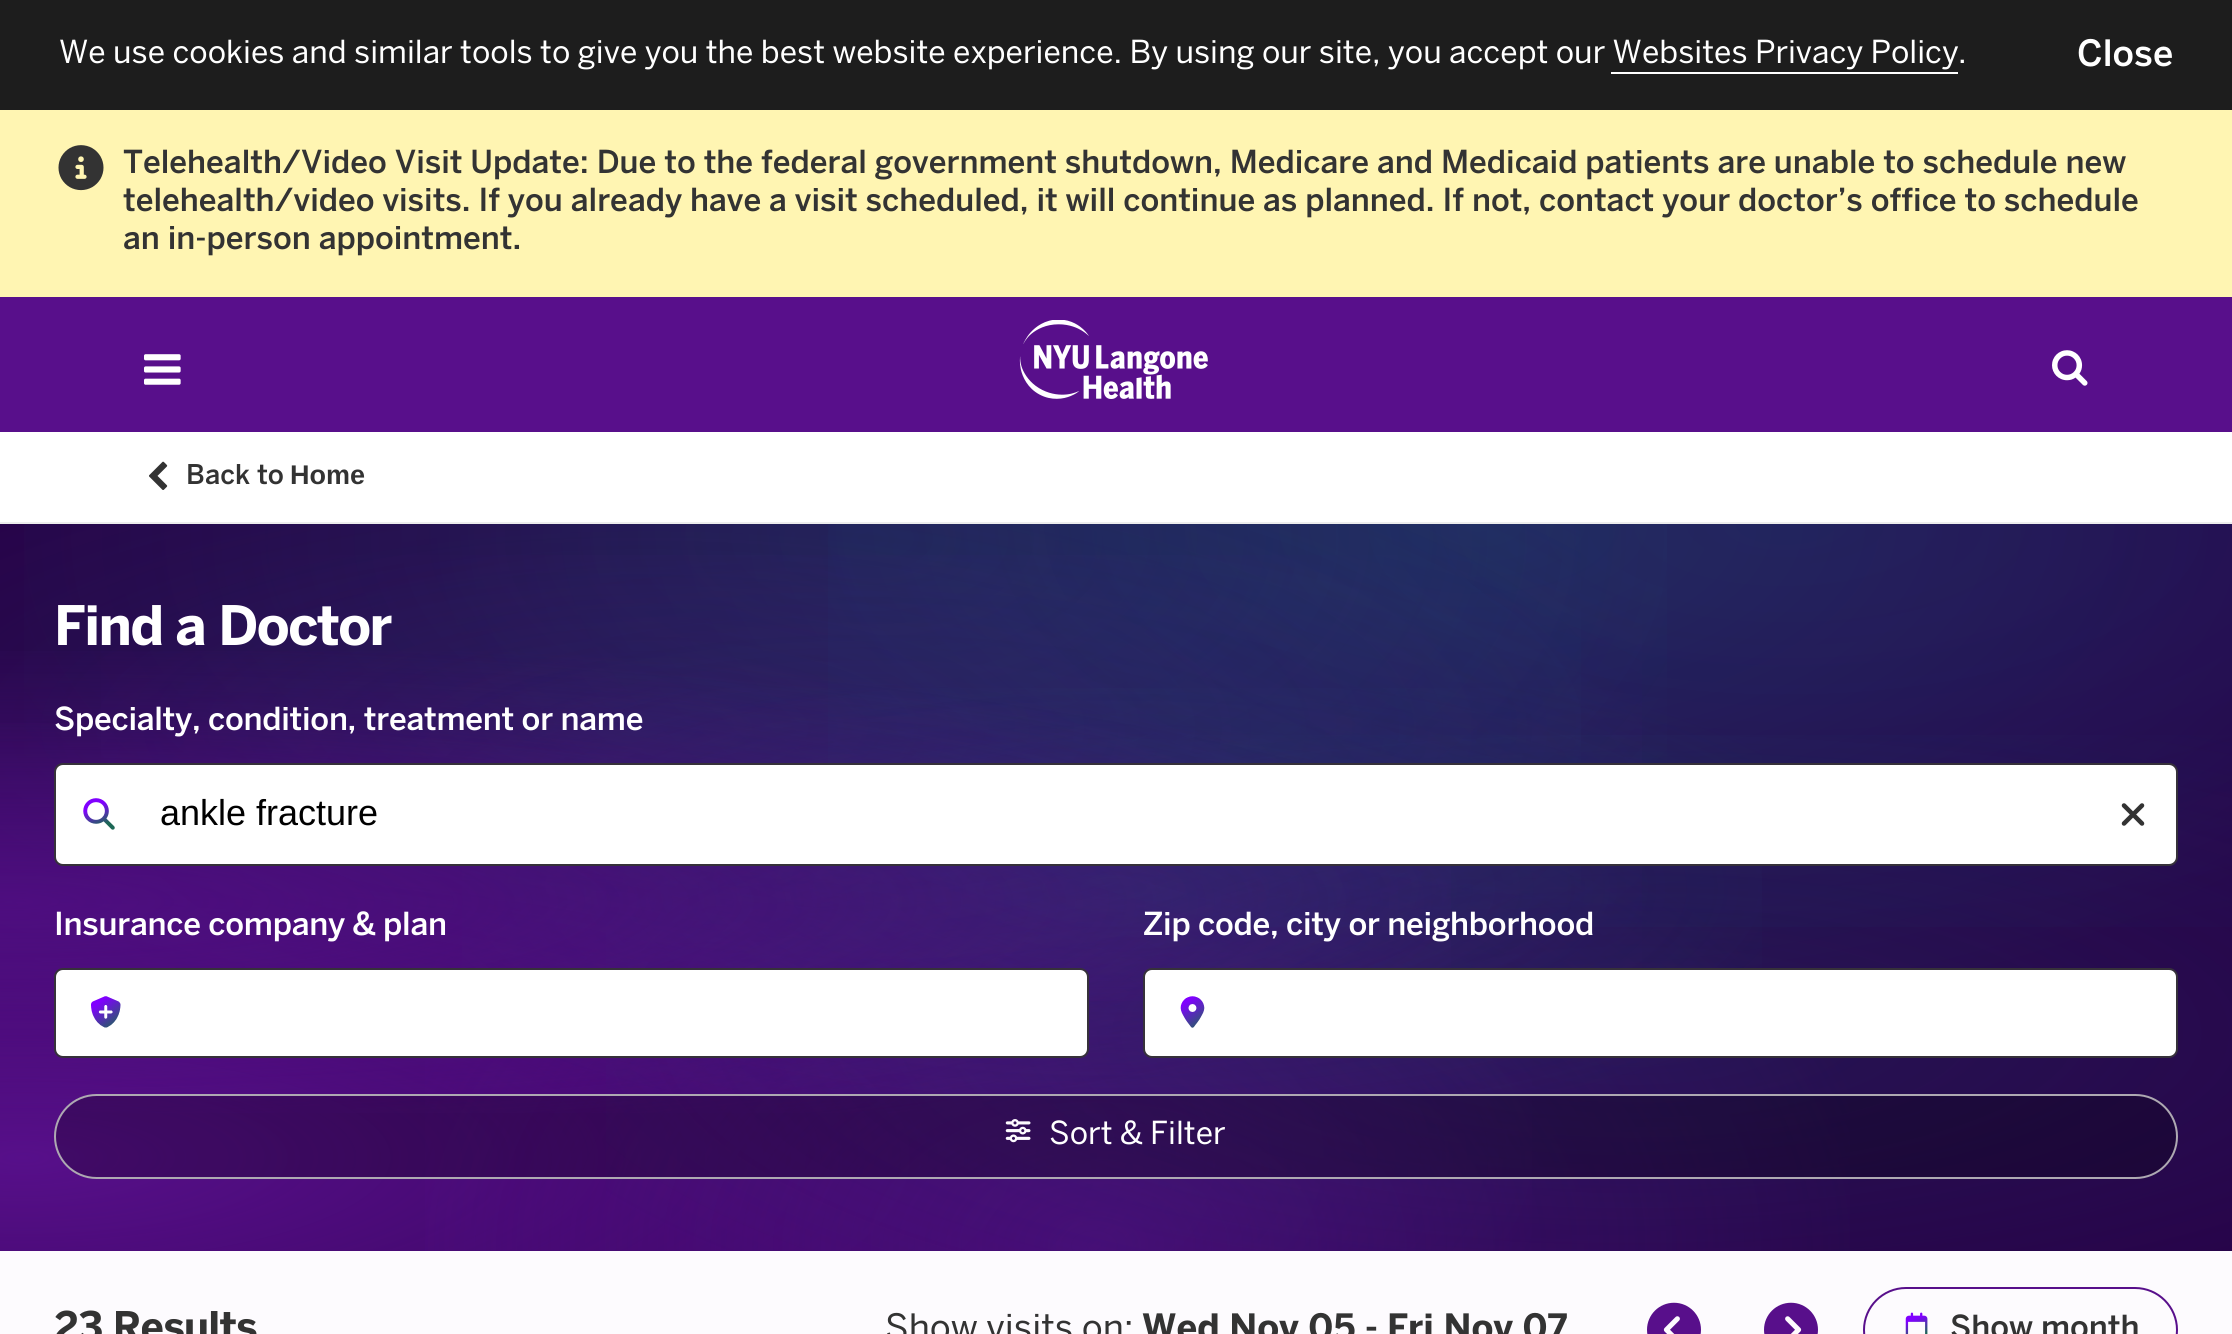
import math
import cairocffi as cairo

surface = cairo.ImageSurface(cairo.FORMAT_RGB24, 2232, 1334)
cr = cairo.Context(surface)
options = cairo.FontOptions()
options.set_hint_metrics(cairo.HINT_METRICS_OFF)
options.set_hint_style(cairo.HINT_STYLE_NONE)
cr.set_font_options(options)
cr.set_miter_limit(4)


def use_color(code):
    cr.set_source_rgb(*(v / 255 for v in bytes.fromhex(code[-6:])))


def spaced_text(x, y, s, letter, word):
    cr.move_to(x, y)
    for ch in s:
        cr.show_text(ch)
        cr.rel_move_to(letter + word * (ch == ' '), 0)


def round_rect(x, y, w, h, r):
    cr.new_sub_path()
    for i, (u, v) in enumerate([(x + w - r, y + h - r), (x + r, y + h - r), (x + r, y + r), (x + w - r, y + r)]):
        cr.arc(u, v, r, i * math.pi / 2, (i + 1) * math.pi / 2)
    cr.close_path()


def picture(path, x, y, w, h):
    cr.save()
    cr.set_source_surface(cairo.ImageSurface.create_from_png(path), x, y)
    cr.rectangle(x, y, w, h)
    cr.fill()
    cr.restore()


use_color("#ffffff")
cr.paint()
use_color("#1d1d1d")
cr.rectangle(0, 0, 2232, 110)
cr.fill()
cr.select_font_face("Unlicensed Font")
cr.set_font_size(31.5)
use_color("#ffffff")
cr.move_to(59, 63)
cr.show_text("We use cookies and similar tools to give you the best website experience. By using our site, you accept our Websites Privacy Policy")
cr.move_to(1958, 63)
cr.show_text(".")
cr.new_path()
cr.move_to(1611, 72)
cr.line_to(1611, 74)
cr.line_to(1958, 74)
cr.line_to(1958, 36)
cr.line_to(1958, 72)
cr.close_path()
cr.fill()
cr.select_font_face("Unlicensed Font Medium")
cr.set_font_size(36)
cr.move_to(2077, 66)
cr.show_text("Close")
use_color("#fff5b2")
cr.rectangle(0, 110, 2232, 187)
cr.fill()
picture("img1.png", 58, 145, 46, 46)
cr.set_font_size(31.5)
use_color("#333333")
cr.move_to(123, 173)
cr.show_text("Telehealth/Video Visit Update: Due to the federal government shutdown, Medicare and Medicaid patients are unable to schedule new")
cr.move_to(123, 211)
cr.show_text("telehealth/video visits. If you already have a visit scheduled, it will continue as planned. If not, contact your doctor’s office to schedule")
cr.move_to(123, 249)
cr.show_text("an in-person appointment.")
use_color("#580f8b")
cr.rectangle(0, 297, 2232, 135)
cr.fill()
picture("img2.png", 144, 354, 37, 31)
picture("img3.png", 1019, 320, 189, 79)
picture("img4.png", 2052, 350, 36, 36)
use_color("#ededed")
cr.rectangle(0, 522, 2232, 2)
cr.fill()
picture("img5.png", 149, 461, 19, 29)
cr.set_font_size(27)
use_color("#333333")
cr.move_to(186, 484)
cr.show_text("Back to")
cr.select_font_face("Liberation Sans", cairo.FONT_SLANT_NORMAL, cairo.FONT_WEIGHT_BOLD)
cr.move_to(290, 484)
cr.show_text("Home")
gradient = cairo.RadialGradient(0, 0, 0, 0, 0, 1)
gradient.set_matrix(cairo.Matrix(1 / 2083, 0, 0, 1 / 1028, -1 * 1473 / 2083, -1 * 524 / 1028))
gradient.add_color_stop_rgba(0, 0.141, 0.133, 0.349, 1)
gradient.add_color_stop_rgba(0.5, 0.157, 0, 0.282, 1)
cr.set_source(gradient)
cr.rectangle(0, 524, 2232, 727)
cr.fill()
gradient = cairo.RadialGradient(0, 0, 0, 0, 0, 1)
gradient.set_matrix(cairo.Matrix(1 / 1925, 0, 0, 1 / 1007, -1 * 870 / 1925, -1 * 539 / 1007))
gradient.add_color_stop_rgba(0, 0.122, 0.267, 0.42, 0.3)
gradient.add_color_stop_rgba(0.5, 0.122, 0.267, 0.42, 0)
cr.set_source(gradient)
cr.rectangle(24, 524, 1643, 457)
cr.fill()
gradient = cairo.RadialGradient(0, 0, 0, 0, 0, 1)
gradient.set_matrix(cairo.Matrix(1 / 2241, 0, 0, 1 / 740, -1 * 647 / 2241, -1 * 728 / 740))
gradient.add_color_stop_rgba(0, 0.122, 0.267, 0.42, 0.3)
gradient.add_color_stop_rgba(0.5, 0.122, 0.267, 0.42, 0)
cr.set_source(gradient)
cr.rectangle(0, 524, 1581, 527)
cr.fill()
gradient = cairo.RadialGradient(0, 0, 0, 0, 0, 1)
gradient.set_matrix(cairo.Matrix(1 / 3125, 0, 0, 1 / 894, -1 * 22 / 3125, -1 * 1157 / 894))
gradient.add_color_stop_rgba(0, 0.341, 0.059, 0.541, 1)
gradient.add_color_stop_rgba(0.5, 0.341, 0.059, 0.541, 0)
cr.set_source(gradient)
cr.rectangle(0, 723, 1532, 528)
cr.fill()
gradient = cairo.RadialGradient(0, 0, 0, 0, 0, 1)
gradient.set_matrix(cairo.Matrix(1 / 1610, 0, 0, 1 / 1018, -1 * 1094 / 1610, -1 * 1244 / 1018))
gradient.add_color_stop_rgba(0, 0.333, 0.059, 0.541, 0.6)
gradient.add_color_stop_rgba(0.5, 0.333, 0.059, 0.541, 0)
cr.set_source(gradient)
cr.rectangle(425, 768, 1425, 483)
cr.fill()
gradient = cairo.RadialGradient(0, 0, 0, 0, 0, 1)
gradient.set_matrix(cairo.Matrix(1 / 2304, 0, 0, 1 / 719, -1 * 1629 / 2304, -1 * 1033 / 719))
gradient.add_color_stop_rgba(0, 0.122, 0.267, 0.42, 0.3)
gradient.add_color_stop_rgba(0.5, 0.122, 0.267, 0.42, 0)
cr.set_source(gradient)
cr.rectangle(606, 735, 1626, 516)
cr.fill()
gradient = cairo.RadialGradient(0, 0, 0, 0, 0, 1)
gradient.set_matrix(cairo.Matrix(1 / 1578, 0, 0, 1 / 514, -1 * 1116 / 1578, -1 * 888 / 514))
gradient.add_color_stop_rgba(0, 0.122, 0.267, 0.42, 0.3)
gradient.add_color_stop_rgba(0.5, 0.122, 0.267, 0.42, 0)
cr.set_source(gradient)
cr.rectangle(462, 688, 1300, 412)
cr.fill()
gradient = cairo.RadialGradient(0, 0, 0, 0, 0, 1)
gradient.set_matrix(cairo.Matrix(1 / 1925, 0, 0, 1 / 637, -1 * 870 / 1925, -1 * 800 / 637))
gradient.add_color_stop_rgba(0, 0.333, 0.059, 0.541, 0.2)
gradient.add_color_stop_rgba(0.5, 0.333, 0.059, 0.541, 0)
cr.set_source(gradient)
cr.rectangle(101, 555, 1541, 446)
cr.fill()
gradient = cairo.RadialGradient(0, 0, 0, 0, 0, 1)
gradient.set_matrix(cairo.Matrix(1 / 3157, 0, 0, 1 / 534, -1 * 0 / 3157, -1 * 902 / 534))
gradient.add_color_stop_rgba(0, 0.333, 0.059, 0.541, 0.7)
gradient.add_color_stop_rgba(0.5, 0.333, 0.059, 0.541, 0)
cr.set_source(gradient)
cr.rectangle(0, 651, 1451, 462)
cr.fill()
gradient = cairo.RadialGradient(0, 0, 0, 0, 0, 1)
gradient.set_matrix(cairo.Matrix(1 / 2525, 0, 0, 1 / 1028, -1 * 1786 / 2525, -1 * 524 / 1028))
gradient.add_color_stop_rgba(0, 0.027, 0.557, 0.733, 0.1)
gradient.add_color_stop_rgba(0.5, 0.027, 0.557, 0.733, 0)
cr.set_source(gradient)
cr.rectangle(828, 524, 1404, 403)
cr.fill()
cr.select_font_face("Unlicensed Font", cairo.FONT_SLANT_NORMAL, cairo.FONT_WEIGHT_BOLD)
cr.set_font_size(54)
use_color("#ffffff")
spaced_text(54, 645, "Find a Doctor", -1.5, 0)
cr.select_font_face("Unlicensed Font Medium")
cr.set_font_size(31.5)
spaced_text(54, 730, "Specialty, condition, treatment or name", -0.25, 0)
round_rect(55, 764, 2122, 101, 8)
cr.fill_preserve()
use_color("#36313a")
cr.stroke()
picture("img6.png", 83, 798, 32, 32)
cr.select_font_face("Liberation Sans")
cr.set_font_size(36)
use_color("#000000")
cr.move_to(160, 825)
cr.show_text("ankle fracture")
picture("img7.png", 2121, 803, 24, 23)
cr.select_font_face("Unlicensed Font Medium")
cr.set_font_size(31.5)
use_color("#ffffff")
spaced_text(54, 935, "Insurance company & plan", -0.25, 0)
round_rect(55, 969, 1033, 88, 8)
cr.fill_preserve()
use_color("#36313a")
cr.stroke()
picture("img8.png", 91, 996, 30, 32)
use_color("#ffffff")
spaced_text(1143, 935, "Zip code, city or neighborhood", -0.25, 0)
round_rect(1144, 969, 1033, 88, 8)
cr.fill_preserve()
use_color("#36313a")
cr.stroke()
picture("img9.png", 1180, 996, 25, 32)
cr.set_source_rgba(0, 0, 0, 0.25)
round_rect(55, 1095, 2122, 83, 41.5)
cr.fill_preserve()
use_color("#aea9b2")
cr.stroke()
picture("img10.png", 1005, 1119, 26, 24)
cr.select_font_face("Unlicensed Font")
use_color("#ffffff")
cr.move_to(1049, 1144)
cr.show_text("Sort & Filter")
use_color("#fdfbfe")
cr.rectangle(0, 1251, 2232, 83)
cr.fill()
cr.select_font_face("Unlicensed Font", cairo.FONT_SLANT_NORMAL, cairo.FONT_WEIGHT_BOLD)
cr.set_font_size(40.5)
use_color("#333333")
spaced_text(54, 1341, "23 Results", -0.75, 0)
cr.select_font_face("Unlicensed Font")
cr.set_font_size(36)
cr.move_to(885, 1340)
cr.show_text("Show visits on:")
cr.select_font_face("Unlicensed Font", cairo.FONT_SLANT_NORMAL, cairo.FONT_WEIGHT_BOLD)
cr.move_to(1142, 1340)
cr.show_text("Wed Nov 05")
cr.move_to(1365, 1340)
cr.show_text("-")
cr.move_to(1387, 1340)
cr.show_text("Fri Nov 07")
picture("img11.png", 1647, 1302, 54, 32)
picture("img12.png", 1764, 1302, 54, 32)
round_rect(1864, 1288, 313, 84, 42)
use_color("#580f8b")
cr.stroke()
picture("img13.png", 1905, 1312, 23, 22)
cr.select_font_face("Unlicensed Font Medium")
cr.set_font_size(31.5)
use_color("#333333")
cr.move_to(1950, 1338)
cr.show_text("Show month")
surface.write_to_png("result.png")
